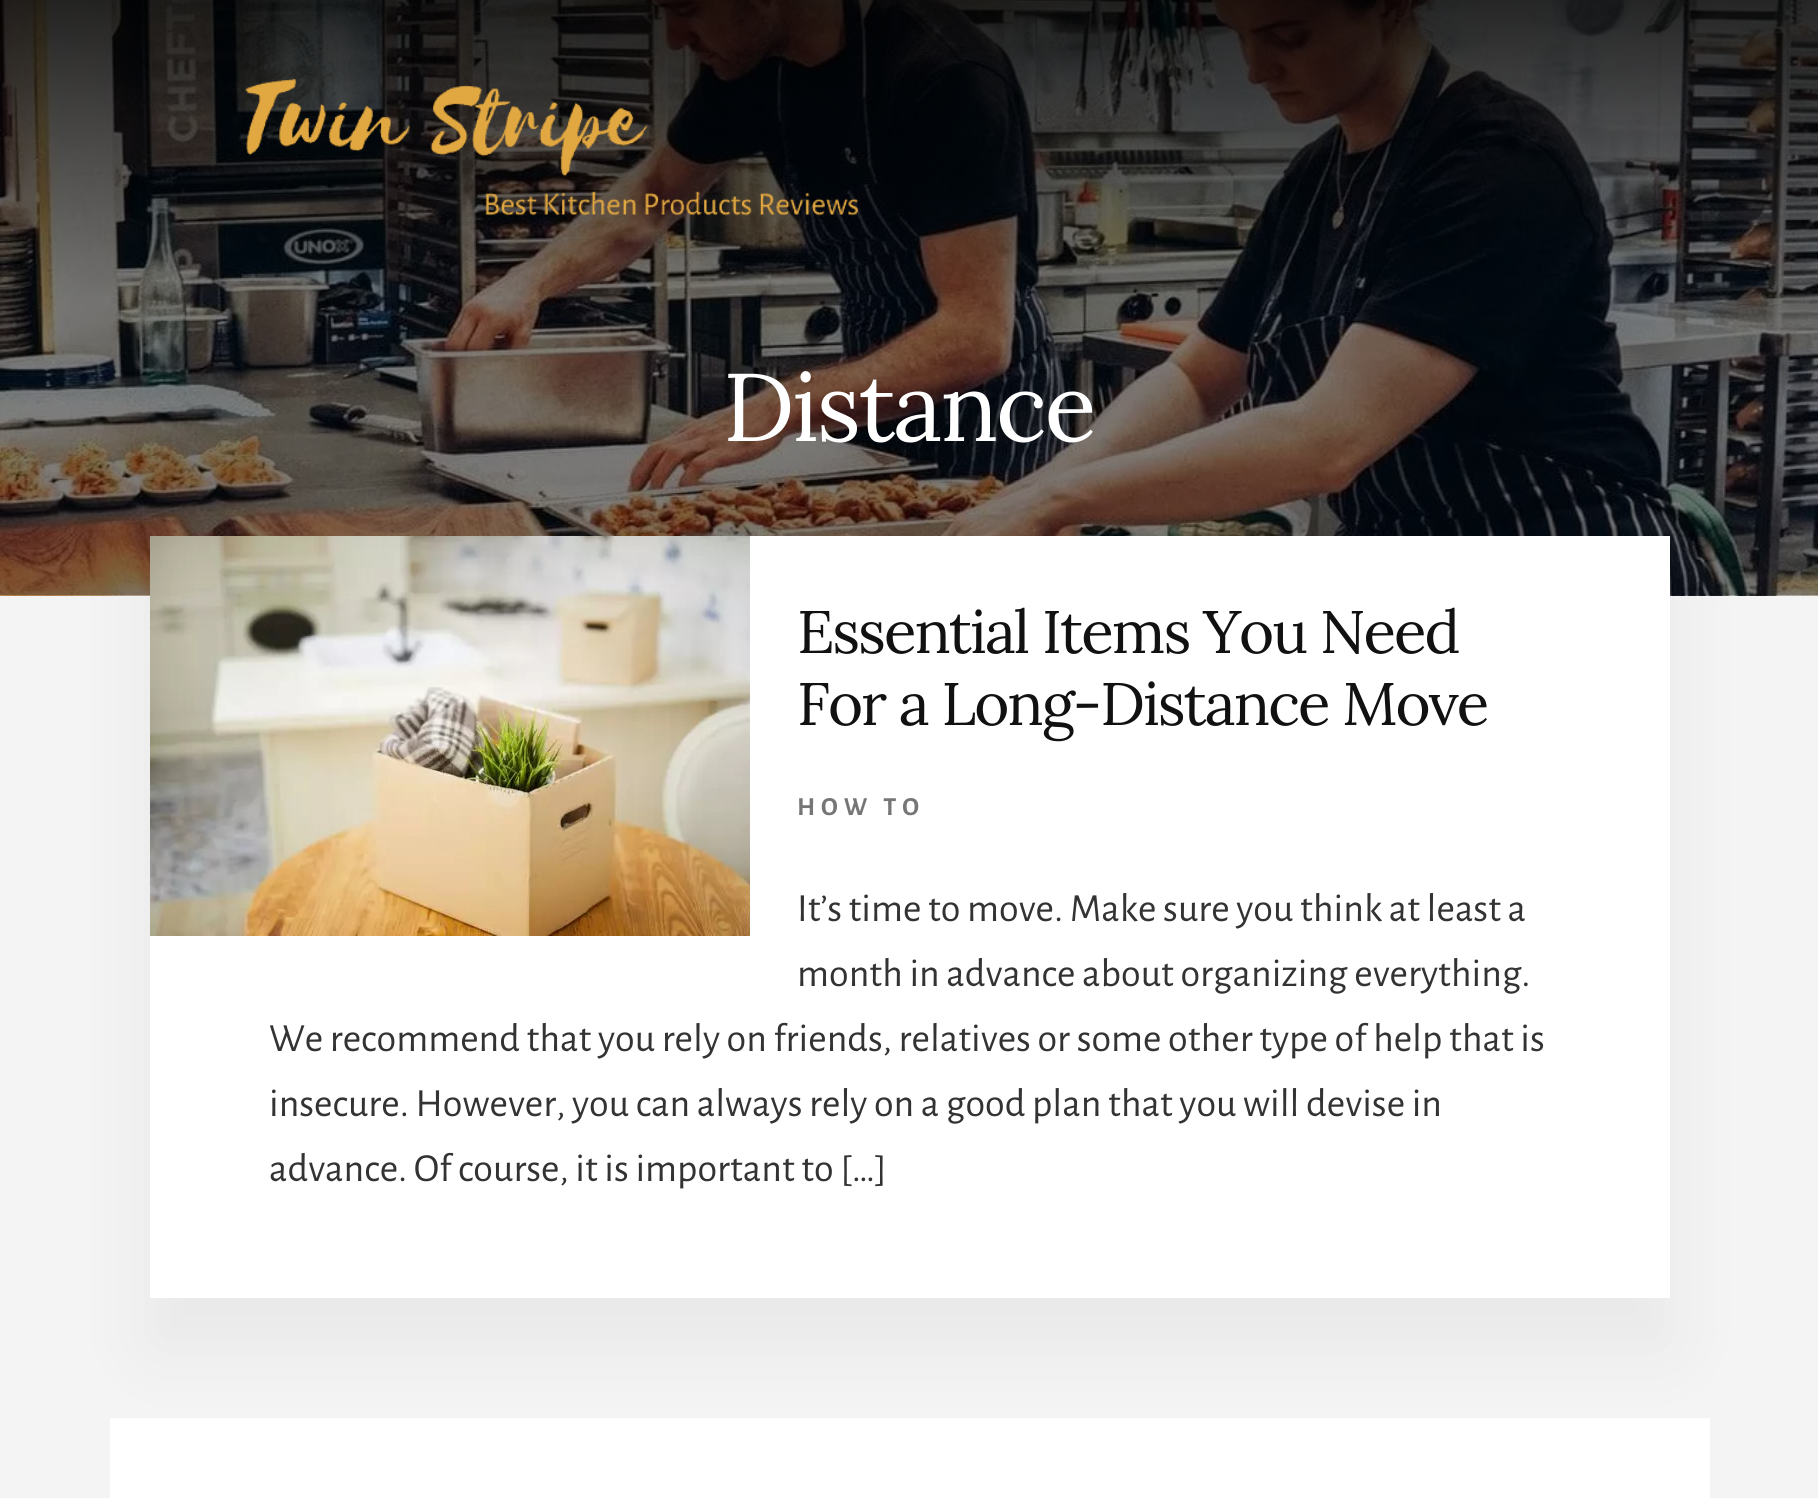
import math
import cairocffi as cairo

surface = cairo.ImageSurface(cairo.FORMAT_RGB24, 1818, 1498)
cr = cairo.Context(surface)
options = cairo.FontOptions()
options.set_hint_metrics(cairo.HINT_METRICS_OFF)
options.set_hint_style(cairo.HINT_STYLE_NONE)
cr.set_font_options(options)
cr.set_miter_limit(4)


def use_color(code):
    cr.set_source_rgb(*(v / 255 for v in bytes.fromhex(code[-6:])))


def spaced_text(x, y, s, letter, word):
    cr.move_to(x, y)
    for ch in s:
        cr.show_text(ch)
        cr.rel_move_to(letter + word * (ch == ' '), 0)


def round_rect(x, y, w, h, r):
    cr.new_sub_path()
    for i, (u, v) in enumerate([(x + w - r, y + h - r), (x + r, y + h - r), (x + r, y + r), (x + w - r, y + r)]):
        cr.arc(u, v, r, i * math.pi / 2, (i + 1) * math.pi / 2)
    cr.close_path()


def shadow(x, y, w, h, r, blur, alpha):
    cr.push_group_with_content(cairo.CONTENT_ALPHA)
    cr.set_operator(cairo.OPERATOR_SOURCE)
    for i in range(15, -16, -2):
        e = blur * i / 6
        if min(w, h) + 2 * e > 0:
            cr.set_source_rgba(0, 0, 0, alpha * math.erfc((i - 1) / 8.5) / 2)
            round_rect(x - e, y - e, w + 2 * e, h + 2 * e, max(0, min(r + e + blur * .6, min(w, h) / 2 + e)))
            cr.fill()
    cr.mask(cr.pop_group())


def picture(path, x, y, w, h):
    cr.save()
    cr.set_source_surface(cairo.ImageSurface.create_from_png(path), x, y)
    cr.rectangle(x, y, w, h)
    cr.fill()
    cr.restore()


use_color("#f4f4f4")
cr.paint()
picture("img1.png", 0, 0, 1818, 596)
picture("img2.png", 245, 78, 614, 138)
cr.select_font_face("Lora")
cr.set_font_size(96)
use_color("#ffffff")
spaced_text(723, 441, "Distance", -2.5, 0)
use_color("#000000")
shadow(150, 586, 1520, 762, 0, 40, 0.05)
use_color("#ffffff")
cr.rectangle(150, 536, 1520, 762)
cr.fill()
picture("img3.png", 150, 536, 600, 400)
cr.set_font_size(60)
use_color("#111111")
spaced_text(797, 653, "Essential Items You Need", -2, 0)
spaced_text(797, 725, "For a Long-Distance Move", -2, 0)
cr.select_font_face("Alegreya Sans", cairo.FONT_SLANT_NORMAL, cairo.FONT_WEIGHT_BOLD)
cr.set_font_size(26)
use_color("#767676")
spaced_text(797, 815, "HOW TO", 6, 0)
cr.select_font_face("Alegreya Sans")
cr.set_font_size(40)
use_color("#333333")
cr.move_to(797, 921)
cr.show_text("It’s time to move. Make sure you think at least a")
cr.move_to(797, 986)
cr.show_text("month in advance about organizing everything.")
cr.move_to(269, 1051)
cr.show_text("We recommend that you rely on friends, relatives or some other type of help that is")
cr.move_to(269, 1116)
cr.show_text("insecure. However, you can always rely on a good plan that you will devise in")
cr.move_to(269, 1181)
cr.show_text("advance. Of course, it is important to […]")
use_color("#ffffff")
cr.rectangle(110, 1418, 1600, 80)
cr.fill()
surface.write_to_png("result.png")
